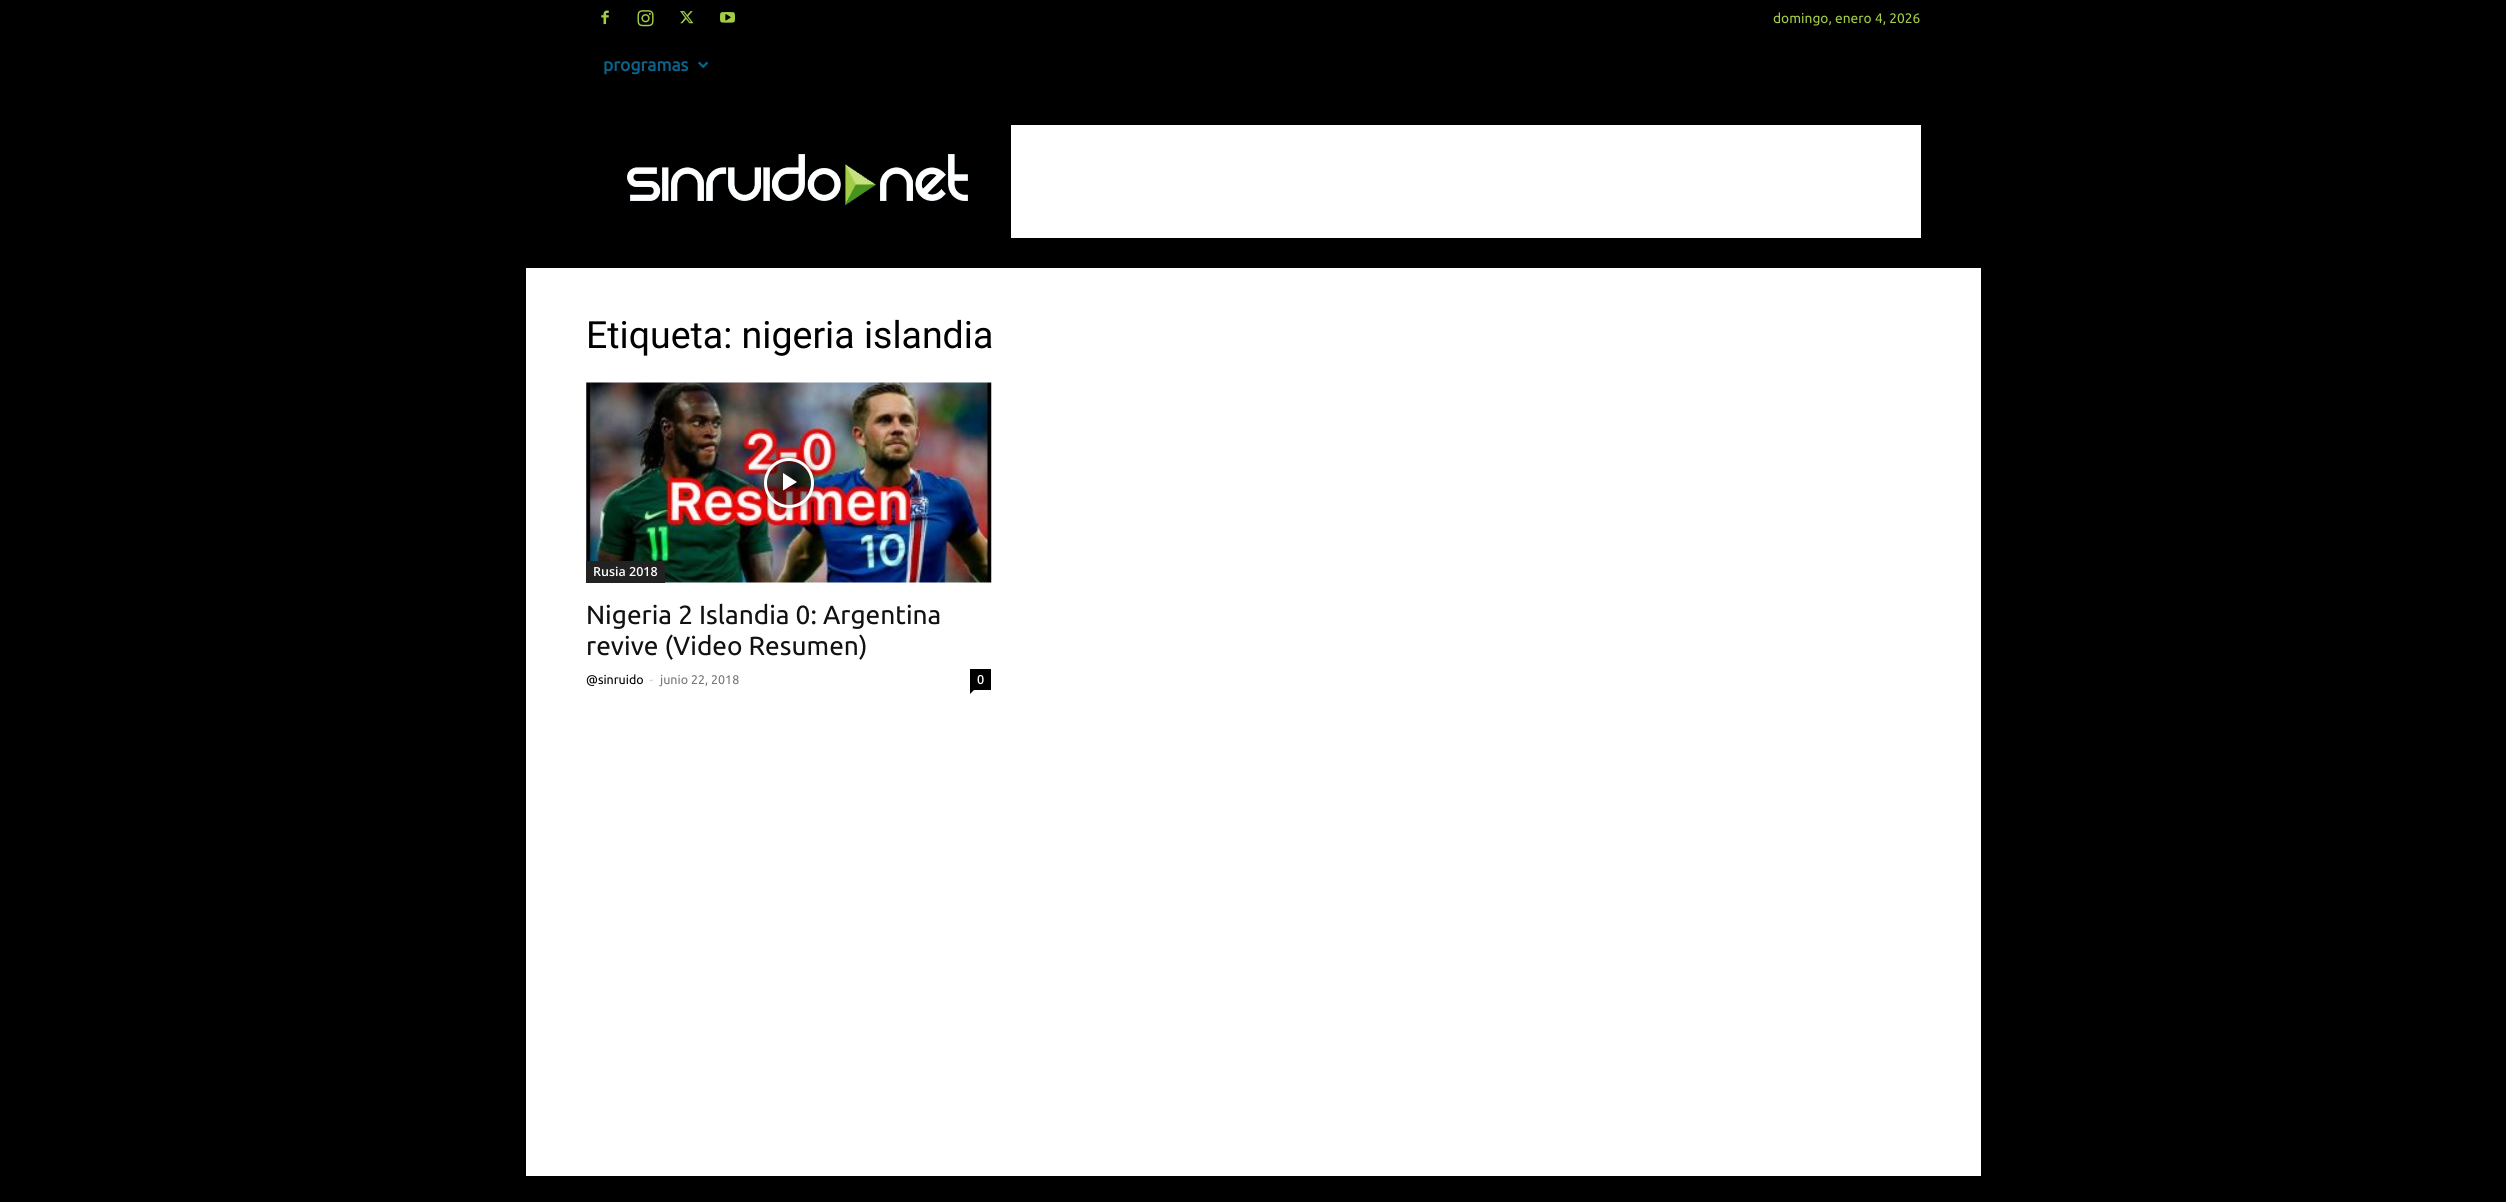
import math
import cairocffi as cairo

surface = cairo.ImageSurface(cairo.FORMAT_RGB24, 2506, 1202)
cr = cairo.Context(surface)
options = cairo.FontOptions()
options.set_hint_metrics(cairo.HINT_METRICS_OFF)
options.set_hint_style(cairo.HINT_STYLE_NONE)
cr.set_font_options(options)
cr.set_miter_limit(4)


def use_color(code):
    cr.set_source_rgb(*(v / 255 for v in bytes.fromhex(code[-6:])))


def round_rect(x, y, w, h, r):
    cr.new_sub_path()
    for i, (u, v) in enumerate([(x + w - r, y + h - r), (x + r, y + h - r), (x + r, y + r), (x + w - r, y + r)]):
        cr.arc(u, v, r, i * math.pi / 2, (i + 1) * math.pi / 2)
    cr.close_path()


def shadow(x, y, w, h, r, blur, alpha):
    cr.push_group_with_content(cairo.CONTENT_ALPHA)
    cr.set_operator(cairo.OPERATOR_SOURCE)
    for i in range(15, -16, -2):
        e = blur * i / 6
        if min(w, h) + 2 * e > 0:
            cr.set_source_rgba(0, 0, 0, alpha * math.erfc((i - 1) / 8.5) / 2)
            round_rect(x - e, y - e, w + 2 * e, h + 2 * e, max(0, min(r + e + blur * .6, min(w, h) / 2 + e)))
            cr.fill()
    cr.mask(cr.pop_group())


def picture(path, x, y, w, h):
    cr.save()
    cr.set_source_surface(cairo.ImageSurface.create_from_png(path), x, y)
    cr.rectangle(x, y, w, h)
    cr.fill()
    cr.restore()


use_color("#000000")
cr.paint()
picture("img1.png", 601, 10, 8, 15)
picture("img2.png", 637, 10, 17, 17)
picture("img3.png", 680, 11, 14, 13)
picture("img4.png", 720, 12, 15, 11)
cr.select_font_face("Ubuntu")
cr.set_font_size(13.75)
use_color("#a3cd46")
cr.move_to(1773, 23)
cr.show_text("domingo, enero 4, 2026")
cr.select_font_face("Ubuntu", cairo.FONT_SLANT_NORMAL, cairo.FONT_WEIGHT_BOLD)
cr.set_font_size(17.5)
use_color("#0b628b")
cr.move_to(603, 71)
cr.show_text("programas")
picture("img5.png", 698, 61, 11, 8)
picture("img6.png", 627, 154, 341, 51)
use_color("#ffffff")
cr.rectangle(1011, 125, 910, 113)
cr.fill()
cr.rectangle(526, 268, 1455, 908)
cr.fill()
cr.select_font_face("Roboto")
cr.set_font_size(37.5)
use_color("#000000")
cr.move_to(586, 348)
cr.show_text("Etiqueta: nigeria islandia")
picture("img7.png", 586, 382, 406, 201)
cr.save()
cr.set_fill_rule(cairo.FILL_RULE_EVEN_ODD)
cr.new_path()
cr.move_to(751, 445)
cr.line_to(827, 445)
cr.line_to(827, 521)
cr.line_to(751, 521)
cr.close_path()
cr.move_to(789, 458)
cr.curve_to(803, 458, 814, 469, 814, 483)
cr.curve_to(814, 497, 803, 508, 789, 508)
cr.curve_to(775, 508, 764, 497, 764, 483)
cr.curve_to(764, 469, 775, 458, 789, 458)
cr.close_path()
cr.clip()
use_color("#000000")
shadow(764, 458, 50, 50, 25, 4, 0.4)
cr.restore()
cr.set_source_rgba(0, 0, 0, 0.48)
cr.arc(789, 483, 23.5, 0, 2 * math.pi)
cr.fill_preserve()
use_color("#ffffff")
cr.set_line_width(3)
cr.stroke()
cr.new_path()
cr.move_to(783, 473)
cr.line_to(783, 490.5)
cr.line_to(797, 482)
cr.close_path()
cr.fill()
use_color("#222222")
cr.rectangle(586, 561, 79, 22)
cr.fill()
cr.select_font_face("Open Sans SemiBold")
cr.set_font_size(12.5)
use_color("#ffffff")
cr.move_to(593, 576)
cr.show_text("Rusia 2018")
cr.select_font_face("Ubuntu")
cr.set_font_size(26.25)
use_color("#111111")
cr.move_to(586, 624)
cr.show_text("Nigeria 2 Islandia 0: Argentina")
cr.move_to(586, 655)
cr.show_text("revive (Video Resumen)")
cr.set_font_size(12.5)
use_color("#000000")
cr.move_to(586, 684)
cr.show_text("@sinruido")
cr.select_font_face("Open Sans")
cr.set_font_size(13.75)
use_color("#cccccc")
cr.move_to(649, 684)
cr.show_text("-")
cr.select_font_face("Ubuntu")
cr.set_font_size(12.5)
use_color("#767676")
cr.move_to(660, 684)
cr.show_text("junio 22, 2018")
use_color("#000000")
cr.rectangle(970, 669, 21, 21)
cr.fill()
cr.select_font_face("Open Sans SemiBold")
use_color("#ffffff")
cr.move_to(977, 684)
cr.show_text("0")
use_color("#000000")
cr.new_path()
cr.move_to(970, 690)
cr.line_to(974, 690)
cr.line_to(970, 694)
cr.close_path()
cr.fill()
surface.write_to_png("result.png")
